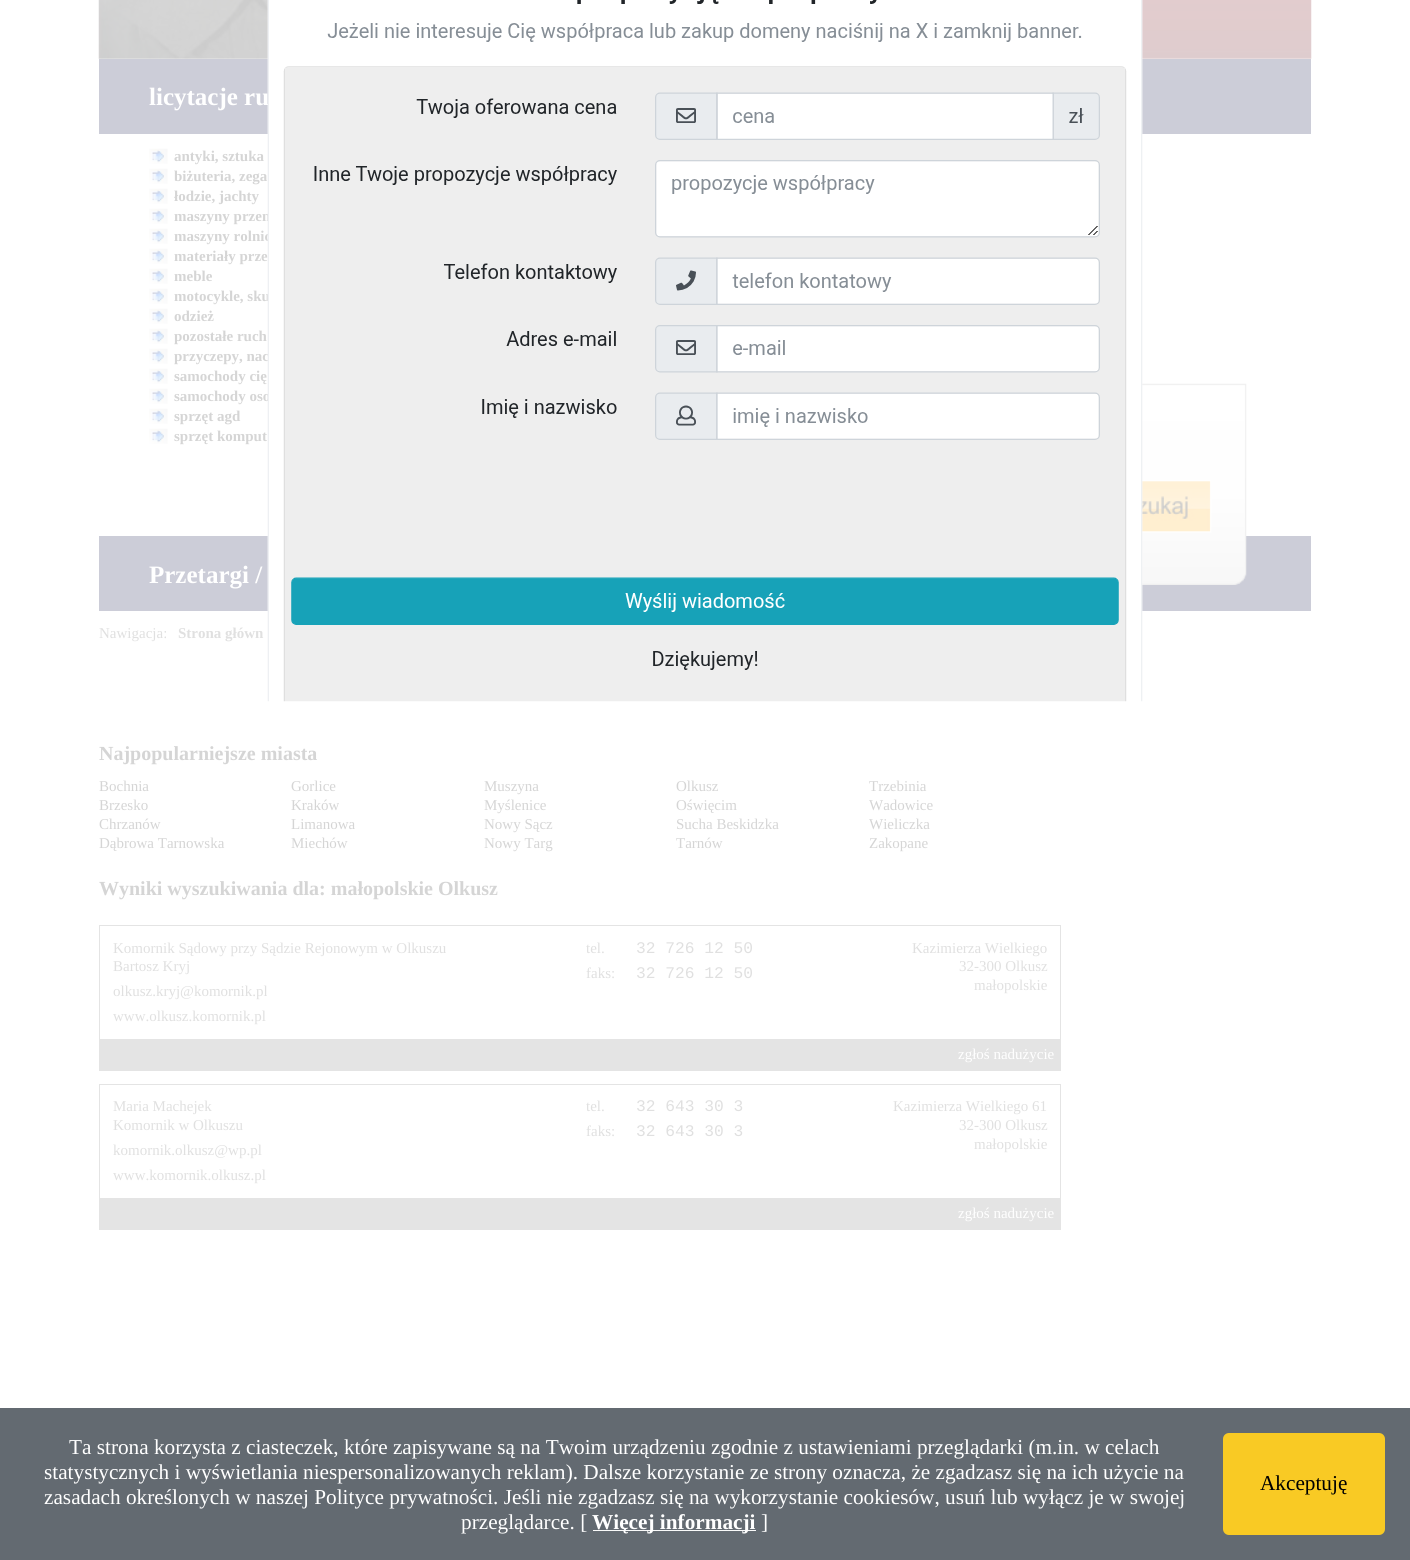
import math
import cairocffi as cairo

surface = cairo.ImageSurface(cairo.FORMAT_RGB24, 1410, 1560)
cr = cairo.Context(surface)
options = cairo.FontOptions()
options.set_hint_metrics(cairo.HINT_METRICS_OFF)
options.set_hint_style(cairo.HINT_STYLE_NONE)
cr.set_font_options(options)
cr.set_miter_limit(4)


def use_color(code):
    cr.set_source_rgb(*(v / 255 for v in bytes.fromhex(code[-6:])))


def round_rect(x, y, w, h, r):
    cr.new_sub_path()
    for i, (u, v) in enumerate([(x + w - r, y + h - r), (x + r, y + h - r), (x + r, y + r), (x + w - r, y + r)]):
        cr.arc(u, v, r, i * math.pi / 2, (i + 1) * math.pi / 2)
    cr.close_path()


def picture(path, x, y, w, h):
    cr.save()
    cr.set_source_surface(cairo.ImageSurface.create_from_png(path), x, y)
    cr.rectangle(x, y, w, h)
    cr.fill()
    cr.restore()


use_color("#ffffff")
cr.paint()
picture("img2.png", 98, 0, 1214, 59)
use_color("#cccdd8")
cr.rectangle(99, 59, 1212, 75)
cr.fill()
cr.select_font_face("Liberation Serif", cairo.FONT_SLANT_NORMAL, cairo.FONT_WEIGHT_BOLD)
cr.set_font_size(25)
use_color("#ffffff")
cr.move_to(149, 105)
cr.show_text("licytacje ru")
cr.set_font_size(15)
use_color("#d5d5d5")
cr.move_to(174, 221)
cr.show_text("maszyny przem")
cr.move_to(174, 241)
cr.show_text("maszyny rolnic")
cr.move_to(174, 261)
cr.show_text("materiały prze")
cr.move_to(174, 301)
cr.show_text("motocykle, sku")
cr.move_to(174, 361)
cr.show_text("przyczepy, nac")
cr.move_to(174, 401)
cr.show_text("samochody oso")
use_color("#cccdd8")
cr.rectangle(99, 536, 1212, 75)
cr.fill()
picture("img5.png", 1142, 383, 105, 202)
picture("img6.png", 1142, 480, 70, 53)
picture("img1.png", 267, 0, 876, 702)
picture("img3.png", 149, 148, 19, 16)
use_color("#d5d5d5")
cr.move_to(174, 161)
cr.show_text("antyki, sztuka")
picture("img3.png", 149, 168, 19, 16)
cr.move_to(174, 181)
cr.show_text("biżuteria, zega")
picture("img3.png", 149, 188, 19, 16)
cr.move_to(174, 201)
cr.show_text("łodzie, jachty")
picture("img3.png", 149, 208, 19, 16)
picture("img3.png", 149, 228, 19, 16)
picture("img3.png", 149, 248, 19, 16)
picture("img3.png", 149, 268, 19, 16)
cr.move_to(174, 281)
cr.show_text("meble")
picture("img3.png", 149, 288, 19, 16)
picture("img3.png", 149, 308, 19, 16)
cr.move_to(174, 321)
cr.show_text("odzież")
picture("img3.png", 149, 328, 19, 16)
cr.move_to(174, 341)
cr.show_text("pozostałe ruch")
picture("img4.png", 149, 348, 19, 16)
picture("img3.png", 149, 368, 19, 16)
cr.move_to(174, 381)
cr.show_text("samochody cię")
picture("img3.png", 149, 388, 19, 16)
picture("img3.png", 149, 408, 19, 16)
cr.move_to(174, 421)
cr.show_text("sprzęt agd")
picture("img3.png", 149, 428, 19, 16)
cr.move_to(174, 441)
cr.show_text("sprzęt komput")
cr.set_font_size(25)
use_color("#ffffff")
cr.move_to(149, 583)
cr.show_text("Przetargi /")
cr.select_font_face("Liberation Serif")
cr.set_font_size(15)
use_color("#e0e0e0")
cr.move_to(99, 638)
cr.show_text("Nawigacja:")
cr.select_font_face("Liberation Serif", cairo.FONT_SLANT_NORMAL, cairo.FONT_WEIGHT_BOLD)
cr.move_to(178, 638)
cr.show_text("Strona główn")
cr.set_font_size(20)
use_color("#d5d5d5")
cr.move_to(99, 760)
cr.show_text("Najpopularniejsze miasta")
cr.select_font_face("Liberation Serif")
cr.set_font_size(15)
cr.move_to(99, 791)
cr.show_text("Bochnia")
cr.move_to(99, 810)
cr.show_text("Brzesko")
cr.move_to(99, 829)
cr.show_text("Chrzanów")
cr.move_to(99, 848)
cr.show_text("Dąbrowa Tarnowska")
cr.move_to(291, 791)
cr.show_text("Gorlice")
cr.move_to(291, 810)
cr.show_text("Kraków")
cr.move_to(291, 829)
cr.show_text("Limanowa")
cr.move_to(291, 848)
cr.show_text("Miechów")
cr.move_to(484, 791)
cr.show_text("Muszyna")
cr.move_to(484, 810)
cr.show_text("Myślenice")
cr.move_to(484, 829)
cr.show_text("Nowy Sącz")
cr.move_to(484, 848)
cr.show_text("Nowy Targ")
cr.move_to(676, 791)
cr.show_text("Olkusz")
cr.move_to(676, 810)
cr.show_text("Oświęcim")
cr.move_to(676, 829)
cr.show_text("Sucha Beskidzka")
cr.move_to(676, 848)
cr.show_text("Tarnów")
cr.move_to(869, 791)
cr.show_text("Trzebinia")
cr.move_to(869, 810)
cr.show_text("Wadowice")
cr.move_to(869, 829)
cr.show_text("Wieliczka")
cr.move_to(869, 848)
cr.show_text("Zakopane")
cr.select_font_face("Liberation Serif", cairo.FONT_SLANT_NORMAL, cairo.FONT_WEIGHT_BOLD)
cr.set_font_size(20)
cr.move_to(99, 895)
cr.show_text("Wyniki wyszukiwania dla: małopolskie Olkusz")
cr.rectangle(99.5, 925.5, 961, 145)
use_color("#e4e4e4")
cr.set_line_width(1)
cr.stroke()
cr.select_font_face("Liberation Serif")
cr.set_font_size(15)
use_color("#e0e0e0")
cr.move_to(113, 953)
cr.show_text("Komornik Sądowy przy Sądzie Rejonowym w Olkuszu")
cr.move_to(113, 971)
cr.show_text("Bartosz Kryj")
cr.move_to(113, 996)
cr.show_text("olkusz.kryj@komornik.pl")
cr.move_to(113, 1021)
cr.show_text("www.olkusz.komornik.pl")
cr.move_to(586, 953)
cr.show_text("tel.")
cr.select_font_face("Liberation Mono")
cr.set_font_size(16.25)
cr.move_to(636, 953)
cr.show_text("32 726 12 50")
cr.select_font_face("Liberation Serif")
cr.set_font_size(15)
cr.move_to(586, 978)
cr.show_text("faks:")
cr.select_font_face("Liberation Mono")
cr.set_font_size(16.25)
cr.move_to(636, 978)
cr.show_text("32 726 12 50")
cr.select_font_face("Liberation Serif")
cr.set_font_size(15)
cr.move_to(912, 953)
cr.show_text("Kazimierza Wielkiego")
cr.move_to(959, 971)
cr.show_text("32-300 Olkusz")
cr.move_to(974, 990)
cr.show_text("małopolskie")
use_color("#e4e4e4")
cr.rectangle(100, 1039, 960, 31)
cr.fill()
use_color("#ffffff")
cr.move_to(958, 1059)
cr.show_text("zgłoś nadużycie")
cr.rectangle(99.5, 1084.5, 961, 145)
use_color("#e4e4e4")
cr.stroke()
use_color("#e0e0e0")
cr.move_to(113, 1111)
cr.show_text("Maria Machejek")
cr.move_to(113, 1130)
cr.show_text("Komornik w Olkuszu")
cr.move_to(113, 1155)
cr.show_text("komornik.olkusz@wp.pl")
cr.move_to(113, 1180)
cr.show_text("www.komornik.olkusz.pl")
cr.move_to(586, 1111)
cr.show_text("tel.")
cr.select_font_face("Liberation Mono")
cr.set_font_size(16.25)
cr.move_to(636, 1111)
cr.show_text("32 643 30 3")
cr.select_font_face("Liberation Serif")
cr.set_font_size(15)
cr.move_to(586, 1136)
cr.show_text("faks:")
cr.select_font_face("Liberation Mono")
cr.set_font_size(16.25)
cr.move_to(636, 1136)
cr.show_text("32 643 30 3")
cr.select_font_face("Liberation Serif")
cr.set_font_size(15)
cr.move_to(893, 1111)
cr.show_text("Kazimierza Wielkiego 61")
cr.move_to(959, 1130)
cr.show_text("32-300 Olkusz")
cr.move_to(974, 1149)
cr.show_text("małopolskie")
use_color("#e4e4e4")
cr.rectangle(100, 1198, 960, 31)
cr.fill()
use_color("#ffffff")
cr.move_to(958, 1218)
cr.show_text("zgłoś nadużycie")
use_color("#636a71")
cr.rectangle(0, 1408, 1410, 152)
cr.fill()
cr.set_font_size(21.25)
use_color("#ffffff")
cr.move_to(69, 1454)
cr.show_text("Ta strona korzysta z ciasteczek, które zapisywane są na Twoim urządzeniu zgodnie z ustawieniami przeglądarki (m.in. w celach")
cr.move_to(44, 1479)
cr.show_text("statystycznych i wyświetlania niespersonalizowanych reklam). Dalsze korzystanie ze strony oznacza, że zgadzasz się na ich użycie na")
cr.move_to(44, 1504)
cr.show_text("zasadach określonych w naszej Polityce prywatności. Jeśli nie zgadzasz się na wykorzystanie cookiesów, usuń lub wyłącz je w swojej")
cr.move_to(461, 1529)
cr.show_text("przeglądarce. [")
use_color("#fafafa")
cr.rectangle(593, 1530, 163, 1)
cr.fill()
cr.select_font_face("Liberation Serif", cairo.FONT_SLANT_NORMAL, cairo.FONT_WEIGHT_BOLD)
use_color("#ffffff")
cr.move_to(592, 1529)
cr.show_text("Więcej informacji")
cr.select_font_face("Liberation Serif")
cr.move_to(761, 1529)
cr.show_text("]")
use_color("#f9ca24")
round_rect(1223, 1433, 162, 102, 6)
cr.fill()
use_color("#000000")
cr.move_to(1260, 1490)
cr.show_text("Akceptuję")
surface.write_to_png("result.png")
